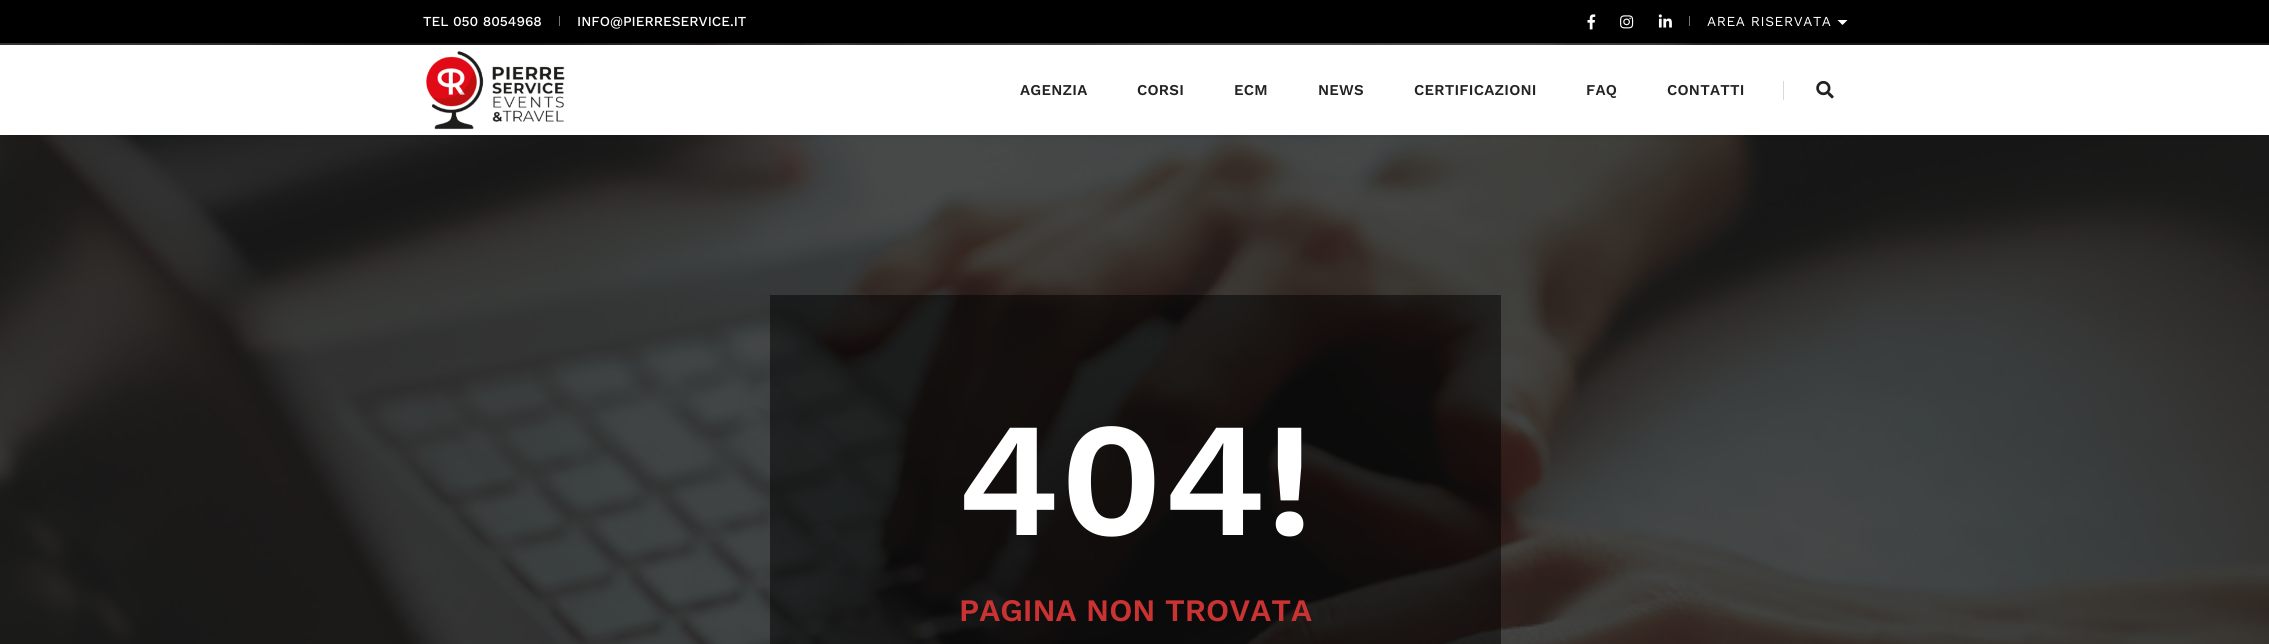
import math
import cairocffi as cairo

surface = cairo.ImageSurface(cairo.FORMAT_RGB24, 2269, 644)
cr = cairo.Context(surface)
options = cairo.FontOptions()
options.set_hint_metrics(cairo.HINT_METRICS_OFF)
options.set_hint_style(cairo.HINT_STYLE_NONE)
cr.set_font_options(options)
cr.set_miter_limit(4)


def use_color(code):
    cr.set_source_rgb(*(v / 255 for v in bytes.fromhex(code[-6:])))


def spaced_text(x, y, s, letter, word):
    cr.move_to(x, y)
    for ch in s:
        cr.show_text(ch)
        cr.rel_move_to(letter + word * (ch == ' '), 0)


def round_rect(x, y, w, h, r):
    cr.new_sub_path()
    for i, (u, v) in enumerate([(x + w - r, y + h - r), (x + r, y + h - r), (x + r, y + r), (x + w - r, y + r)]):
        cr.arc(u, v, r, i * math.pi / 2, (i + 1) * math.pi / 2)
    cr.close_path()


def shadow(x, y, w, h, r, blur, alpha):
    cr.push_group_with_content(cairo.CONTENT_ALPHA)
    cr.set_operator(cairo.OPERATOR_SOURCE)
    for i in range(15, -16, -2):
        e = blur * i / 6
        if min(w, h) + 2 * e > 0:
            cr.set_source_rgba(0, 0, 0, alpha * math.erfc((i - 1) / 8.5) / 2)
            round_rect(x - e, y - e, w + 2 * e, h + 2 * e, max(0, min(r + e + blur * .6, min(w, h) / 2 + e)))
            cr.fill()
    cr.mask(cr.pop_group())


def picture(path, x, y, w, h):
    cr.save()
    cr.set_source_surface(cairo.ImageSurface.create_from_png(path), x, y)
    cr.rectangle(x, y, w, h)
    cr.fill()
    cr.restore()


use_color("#ffffff")
cr.paint()
use_color("#000000")
cr.rectangle(0, 0, 2269, 43)
cr.fill()
cr.select_font_face("Work Sans Medium")
cr.set_font_size(13.75)
use_color("#ffffff")
cr.move_to(423, 26)
cr.show_text("TEL 050 8054968")
use_color("#757575")
cr.rectangle(559, 16, 1, 10)
cr.fill()
use_color("#ffffff")
cr.move_to(577, 26)
cr.show_text("INFO@PIERRESERVICE.IT")
picture("img1.png", 1587, 14, 9, 16)
picture("img2.png", 1620, 15, 14, 14)
picture("img3.png", 1658, 14, 14, 14)
use_color("#757575")
cr.rectangle(1689, 16, 1, 10)
cr.fill()
cr.select_font_face("Work Sans")
use_color("#ffffff")
spaced_text(1707, 26, "AREA RISERVATA", 0.6, 0)
cr.new_path()
cr.move_to(1837.5, 20)
cr.line_to(1847.5, 20)
cr.line_to(1842.5, 25)
cr.close_path()
cr.fill()
picture("img6.png", 0, 43, 2269, 601)
use_color("#000000")
shadow(13, 63, 2245, 65, 0, 6, 0.6)
use_color("#ffffff")
cr.rectangle(0, 45, 2269, 90)
cr.fill()
picture("img4.png", 426, 51, 139, 79)
cr.select_font_face("Work Sans SemiBold")
cr.set_font_size(15)
use_color("#232323")
spaced_text(1020, 95, "AGENZIA", 0.25, 0)
spaced_text(1137, 95, "CORSI", 0.25, 0)
spaced_text(1234, 95, "ECM", 0.25, 0)
spaced_text(1318, 95, "NEWS", 0.25, 0)
spaced_text(1414, 95, "CERTIFICAZIONI", 0.25, 0)
spaced_text(1586, 95, "FAQ", 0.25, 0)
spaced_text(1667, 95, "CONTATTI", 0.25, 0)
use_color("#d9d9d9")
cr.rectangle(1783, 81, 1, 19)
cr.fill()
picture("img5.png", 1816, 80, 18, 19)
cr.set_source_rgba(0, 0, 0, 0.5)
cr.rectangle(770, 295, 731, 349)
cr.fill()
cr.set_font_size(162.5)
use_color("#ffffff")
cr.move_to(957, 535)
cr.show_text("404!")
cr.set_font_size(31.25)
use_color("#cb3333")
cr.move_to(959, 621)
cr.show_text("PAGINA NON TROVATA")
surface.write_to_png("result.png")
